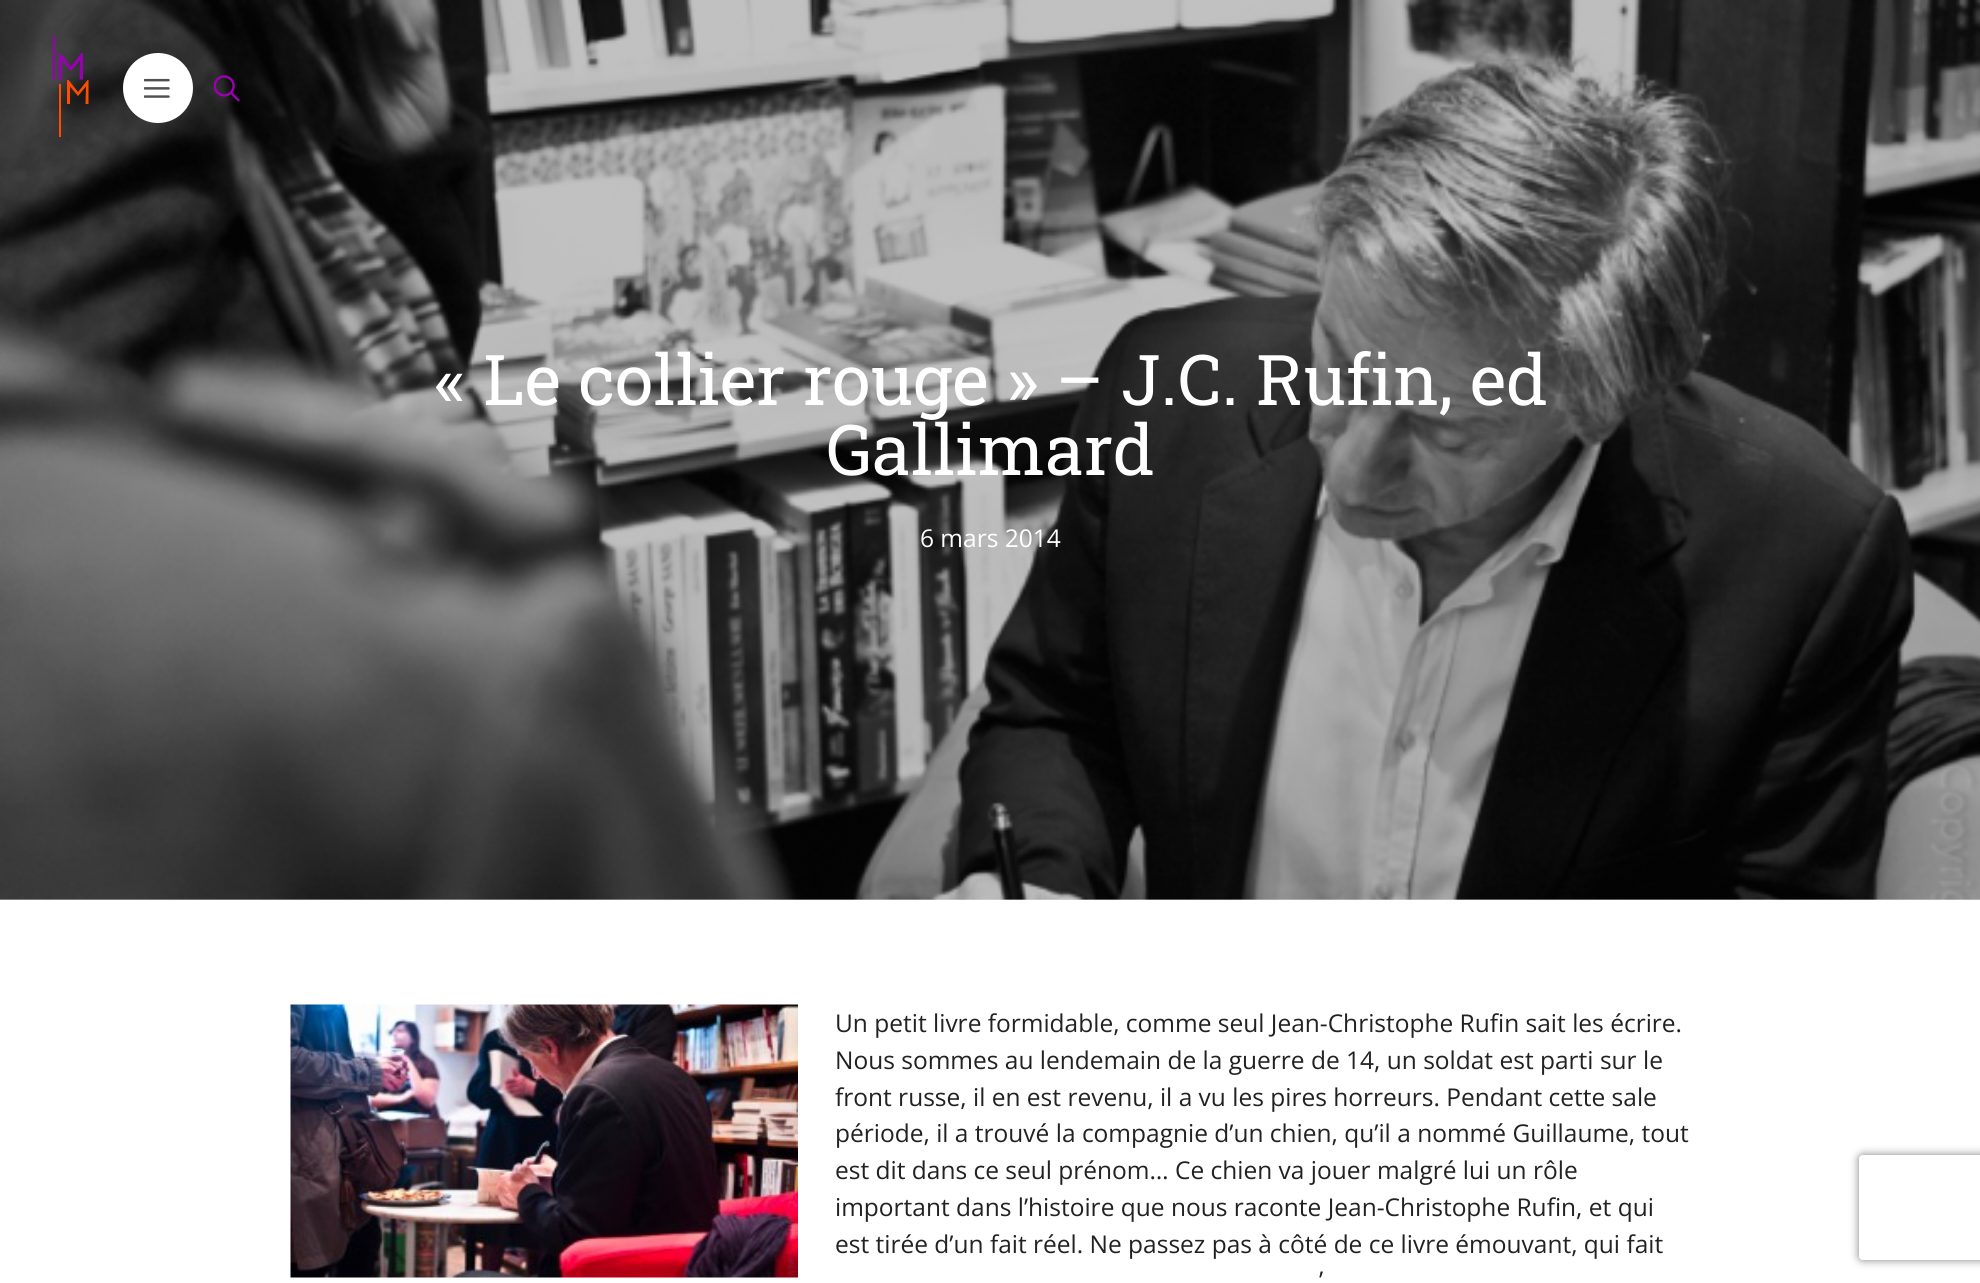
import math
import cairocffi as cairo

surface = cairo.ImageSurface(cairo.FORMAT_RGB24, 1980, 1283)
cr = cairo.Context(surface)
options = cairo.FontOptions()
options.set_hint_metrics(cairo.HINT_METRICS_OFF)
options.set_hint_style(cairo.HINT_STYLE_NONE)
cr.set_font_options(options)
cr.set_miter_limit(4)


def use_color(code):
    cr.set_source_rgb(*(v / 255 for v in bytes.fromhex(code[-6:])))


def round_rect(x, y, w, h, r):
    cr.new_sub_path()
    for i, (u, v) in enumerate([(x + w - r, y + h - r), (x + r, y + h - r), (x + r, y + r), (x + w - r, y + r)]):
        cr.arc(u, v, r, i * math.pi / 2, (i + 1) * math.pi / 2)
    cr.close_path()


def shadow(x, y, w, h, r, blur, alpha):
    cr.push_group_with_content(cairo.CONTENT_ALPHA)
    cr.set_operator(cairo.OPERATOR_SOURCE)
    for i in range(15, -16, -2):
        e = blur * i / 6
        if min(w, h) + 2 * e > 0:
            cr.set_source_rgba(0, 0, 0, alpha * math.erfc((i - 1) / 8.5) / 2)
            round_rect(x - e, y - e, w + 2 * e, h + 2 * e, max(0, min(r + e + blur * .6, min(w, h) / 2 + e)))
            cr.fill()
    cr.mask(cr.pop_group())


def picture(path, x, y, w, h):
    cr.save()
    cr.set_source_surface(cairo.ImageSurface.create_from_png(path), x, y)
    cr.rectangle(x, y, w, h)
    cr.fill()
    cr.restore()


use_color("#ffffff")
cr.paint()
use_color("#c2c2c2")
cr.rectangle(0, 899, 1980, 1)
cr.fill()
picture("img3.png", 0, 0, 1980, 900)
use_color("#ff4c00")
cr.new_path()
cr.move_to(68.5, 80)
cr.line_to(78, 92)
cr.line_to(87.5, 80)
cr.line_to(88.5, 80)
cr.line_to(88.5, 104)
cr.line_to(85.5, 104)
cr.line_to(86, 86.5)
cr.line_to(78, 96)
cr.line_to(70, 86.5)
cr.line_to(70, 104)
cr.line_to(67, 104)
cr.line_to(67, 80)
cr.close_path()
cr.fill()
use_color("#9a00b3")
cr.new_path()
cr.move_to(60, 53)
cr.line_to(71, 66.5)
cr.line_to(81.5, 53)
cr.line_to(83, 53)
cr.line_to(83, 79.5)
cr.line_to(79.5, 79.5)
cr.line_to(80, 60.5)
cr.line_to(71, 71)
cr.line_to(62, 60.5)
cr.line_to(62, 79.5)
cr.line_to(59, 79.5)
cr.line_to(59, 53)
cr.close_path()
cr.fill()
cr.rectangle(53, 36, 2, 44)
cr.fill()
use_color("#ff4c00")
cr.rectangle(59, 84, 2, 53)
cr.fill()
use_color("#ffffff")
cr.arc(158, 88, 35, 0, 2 * math.pi)
cr.fill()
picture("img1.png", 144, 78, 26, 20)
picture("img2.png", 214, 75, 26, 27)
cr.select_font_face("Roboto Slab")
cr.set_font_size(70)
cr.move_to(434, 405)
cr.show_text("« Le collier rouge » – J.C. Rufin, ed")
cr.move_to(826, 475)
cr.show_text("Gallimard")
cr.select_font_face("Open Sans")
cr.set_font_size(24.5)
cr.move_to(920, 547)
cr.show_text("6 mars 2014")
picture("img4.png", 290, 1004, 508, 274)
use_color("#222222")
cr.move_to(835, 1032)
cr.show_text("Un petit livre formidable, comme seul Jean-Christophe Rufin sait les écrire.")
cr.move_to(835, 1069)
cr.show_text("Nous sommes au lendemain de la guerre de 14, un soldat est parti sur le")
cr.move_to(835, 1106)
cr.show_text("front russe, il en est revenu, il a vu les pires horreurs. Pendant cette sale")
cr.move_to(835, 1142)
cr.show_text("période, il a trouvé la compagnie d’un chien, qu’il a nommé Guillaume, tout")
cr.move_to(835, 1179)
cr.show_text("est dit dans ce seul prénom… Ce chien va jouer malgré lui un rôle")
cr.move_to(835, 1216)
cr.show_text("important dans l’histoire que nous raconte Jean-Christophe Rufin, et qui")
cr.move_to(835, 1253)
cr.show_text("est tirée d’un fait réel. Ne passez pas à côté de ce livre émouvant, qui fait")
cr.move_to(1319, 1289)
cr.show_text("’")
cr.save()
cr.set_fill_rule(cairo.FILL_RULE_EVEN_ODD)
cr.new_path()
cr.move_to(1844, 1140)
cr.line_to(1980, 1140)
cr.line_to(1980, 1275)
cr.line_to(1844, 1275)
cr.close_path()
cr.move_to(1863, 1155)
cr.line_to(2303, 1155)
cr.curve_to(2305, 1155, 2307, 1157, 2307, 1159)
cr.line_to(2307, 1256)
cr.curve_to(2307, 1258, 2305, 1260, 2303, 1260)
cr.line_to(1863, 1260)
cr.curve_to(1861, 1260, 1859, 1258, 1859, 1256)
cr.line_to(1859, 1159)
cr.curve_to(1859, 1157, 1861, 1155, 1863, 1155)
cr.close_path()
cr.clip()
use_color("#808080")
shadow(1859, 1155, 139, 105, 4, 4.5, 1)
cr.restore()
surface.write_to_png("result.png")
